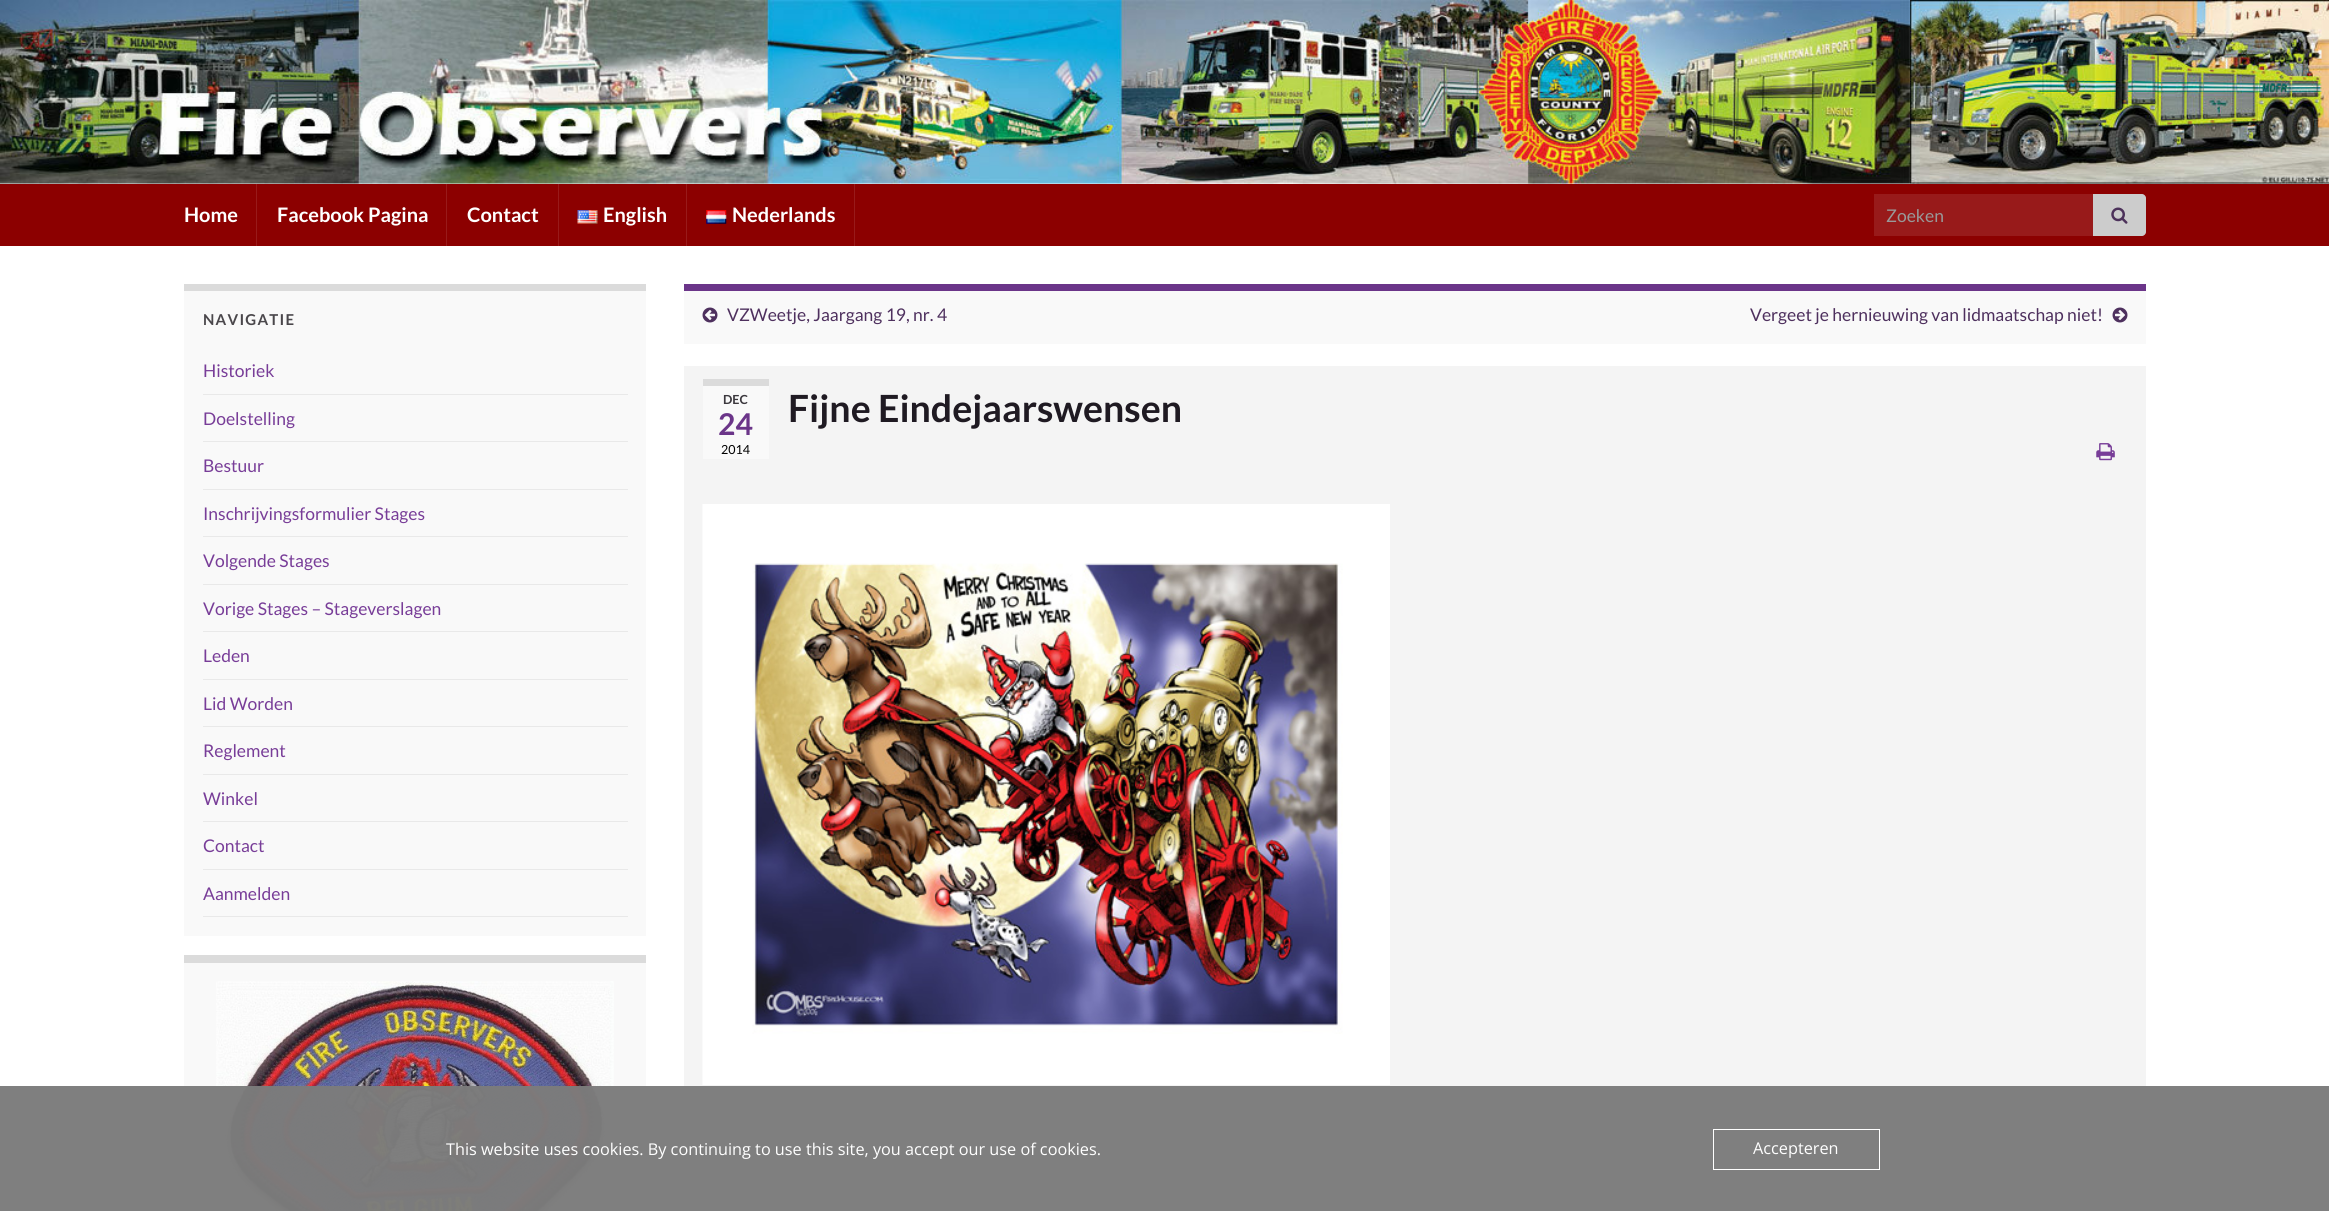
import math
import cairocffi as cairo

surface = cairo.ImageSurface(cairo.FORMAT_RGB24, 2329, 1211)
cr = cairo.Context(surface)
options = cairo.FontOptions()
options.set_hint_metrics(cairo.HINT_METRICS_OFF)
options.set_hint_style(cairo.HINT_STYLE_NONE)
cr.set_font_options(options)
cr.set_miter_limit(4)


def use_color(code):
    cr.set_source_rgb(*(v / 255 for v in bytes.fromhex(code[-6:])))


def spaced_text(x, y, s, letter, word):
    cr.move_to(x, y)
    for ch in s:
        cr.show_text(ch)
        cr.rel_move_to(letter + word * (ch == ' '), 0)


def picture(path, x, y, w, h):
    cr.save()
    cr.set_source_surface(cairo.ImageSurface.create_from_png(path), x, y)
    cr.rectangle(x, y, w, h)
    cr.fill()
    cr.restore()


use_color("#ffffff")
cr.paint()
picture("img1.png", 0, 0, 2329, 184)
use_color("#8c0000")
cr.rectangle(0, 184, 2329, 62)
cr.fill()
use_color("#981a1a")
cr.rectangle(256, 184, 1, 62)
cr.fill()
cr.select_font_face("Lato", cairo.FONT_SLANT_NORMAL, cairo.FONT_WEIGHT_BOLD)
cr.set_font_size(20)
use_color("#ffffff")
cr.move_to(184, 222)
cr.show_text("Home")
use_color("#981a1a")
cr.rectangle(446, 184, 1, 62)
cr.fill()
use_color("#ffffff")
cr.move_to(277, 222)
cr.show_text("Facebook Pagina")
use_color("#981a1a")
cr.rectangle(558, 184, 1, 62)
cr.fill()
use_color("#ffffff")
cr.move_to(467, 222)
cr.show_text("Contact")
use_color("#981a1a")
cr.rectangle(686, 184, 1, 62)
cr.fill()
picture("img2.png", 577, 210, 21, 14)
use_color("#ffffff")
cr.move_to(603, 222)
cr.show_text("English")
use_color("#981a1a")
cr.rectangle(854, 184, 1, 62)
cr.fill()
picture("img3.png", 706, 210, 21, 14)
use_color("#ffffff")
cr.move_to(732, 222)
cr.show_text("Nederlands")
use_color("#981a1a")
cr.rectangle(1874, 194, 219, 42)
cr.fill()
cr.select_font_face("Lato")
cr.set_font_size(17.5)
use_color("#999999")
cr.move_to(1886, 222)
cr.show_text("Zoeken")
use_color("#cccccc")
cr.new_path()
cr.move_to(2093, 194)
cr.line_to(2142, 194)
cr.curve_to(2144, 194, 2146, 196, 2146, 198)
cr.line_to(2146, 232)
cr.curve_to(2146, 234, 2144, 236, 2142, 236)
cr.line_to(2093, 236)
cr.close_path()
cr.fill()
picture("img4.png", 2111, 207, 17, 17)
use_color("#f9f9f9")
cr.rectangle(184, 291, 462, 645)
cr.fill()
use_color("#dbdbdb")
cr.rectangle(184, 284, 462, 7)
cr.fill()
cr.select_font_face("Lato", cairo.FONT_SLANT_NORMAL, cairo.FONT_WEIGHT_BOLD)
cr.set_font_size(15)
use_color("#4a474b")
spaced_text(203, 325, "NAVIGATIE", 1.25, 0)
use_color("#e9e9e9")
cr.rectangle(203, 394, 425, 1)
cr.fill()
cr.select_font_face("Lato")
cr.set_font_size(17.5)
use_color("#783d98")
cr.move_to(203, 377)
cr.show_text("Historiek")
use_color("#e9e9e9")
cr.rectangle(203, 441, 425, 1)
cr.fill()
use_color("#783d98")
cr.move_to(203, 425)
cr.show_text("Doelstelling")
use_color("#e9e9e9")
cr.rectangle(203, 489, 425, 1)
cr.fill()
use_color("#783d98")
cr.move_to(203, 472)
cr.show_text("Bestuur")
use_color("#e9e9e9")
cr.rectangle(203, 536, 425, 1)
cr.fill()
use_color("#783d98")
cr.move_to(203, 520)
cr.show_text("Inschrijvingsformulier Stages")
use_color("#e9e9e9")
cr.rectangle(203, 584, 425, 1)
cr.fill()
use_color("#783d98")
cr.move_to(203, 567)
cr.show_text("Volgende Stages")
use_color("#e9e9e9")
cr.rectangle(203, 631, 425, 1)
cr.fill()
use_color("#783d98")
cr.move_to(203, 615)
cr.show_text("Vorige Stages – Stageverslagen")
use_color("#e9e9e9")
cr.rectangle(203, 679, 425, 1)
cr.fill()
use_color("#783d98")
cr.move_to(203, 662)
cr.show_text("Leden")
use_color("#e9e9e9")
cr.rectangle(203, 726, 425, 1)
cr.fill()
use_color("#783d98")
cr.move_to(203, 710)
cr.show_text("Lid Worden")
use_color("#e9e9e9")
cr.rectangle(203, 774, 425, 1)
cr.fill()
use_color("#783d98")
cr.move_to(203, 757)
cr.show_text("Reglement")
use_color("#e9e9e9")
cr.rectangle(203, 821, 425, 1)
cr.fill()
use_color("#783d98")
cr.move_to(203, 805)
cr.show_text("Winkel")
use_color("#e9e9e9")
cr.rectangle(203, 869, 425, 1)
cr.fill()
use_color("#783d98")
cr.move_to(203, 852)
cr.show_text("Contact")
use_color("#e9e9e9")
cr.rectangle(203, 916, 425, 1)
cr.fill()
use_color("#783d98")
cr.move_to(203, 900)
cr.show_text("Aanmelden")
use_color("#f9f9f9")
cr.rectangle(184, 963, 462, 248)
cr.fill()
use_color("#dbdbdb")
cr.rectangle(184, 955, 462, 8)
cr.fill()
picture("img5.png", 216, 981, 398, 230)
use_color("#f9f9f9")
cr.rectangle(684, 291, 1462, 53)
cr.fill()
use_color("#6b3589")
cr.rectangle(684, 284, 1462, 7)
cr.fill()
picture("img6.png", 702, 307, 16, 16)
use_color("#4e305e")
cr.move_to(727, 321)
cr.show_text("VZWeetje, Jaargang 19, nr. 4")
cr.move_to(1750, 321)
cr.show_text("Vergeet je hernieuwing van lidmaatschap niet!")
picture("img7.png", 2112, 307, 16, 16)
use_color("#f4f4f4")
cr.rectangle(684, 366, 1462, 845)
cr.fill()
use_color("#f9f9f9")
cr.rectangle(703, 386, 66, 73)
cr.fill()
use_color("#dbdbdb")
cr.rectangle(703, 379, 66, 7)
cr.fill()
cr.select_font_face("Lato", cairo.FONT_SLANT_NORMAL, cairo.FONT_WEIGHT_BOLD)
cr.set_font_size(12.5)
use_color("#3b383d")
cr.move_to(723, 404)
cr.show_text("DEC")
cr.set_font_size(30)
use_color("#6b3589")
cr.move_to(718, 435)
cr.show_text("24")
cr.select_font_face("Lato")
cr.set_font_size(12.5)
use_color("#000000")
cr.move_to(721, 454)
cr.show_text("2014")
cr.select_font_face("Lato", cairo.FONT_SLANT_NORMAL, cairo.FONT_WEIGHT_BOLD)
cr.set_font_size(37.5)
use_color("#1f1a22")
cr.move_to(788, 422)
cr.show_text("Fijne Eindejaarswensen")
picture("img8.png", 2096, 443, 19, 18)
picture("img9.png", 702, 504, 688, 581)
cr.set_source_rgba(0.486, 0.486, 0.486, 0.97)
cr.rectangle(0, 1086, 2329, 125)
cr.fill()
cr.select_font_face("Open Sans")
cr.set_font_size(16.25)
use_color("#ffffff")
cr.move_to(446, 1155)
cr.show_text("This website uses cookies. By continuing to use this site, you accept our use of cookies.")
cr.rectangle(1713.5, 1129.5, 166, 40)
cr.set_line_width(1)
cr.stroke()
cr.move_to(1753, 1154)
cr.show_text("Accepteren")
surface.write_to_png("result.png")
